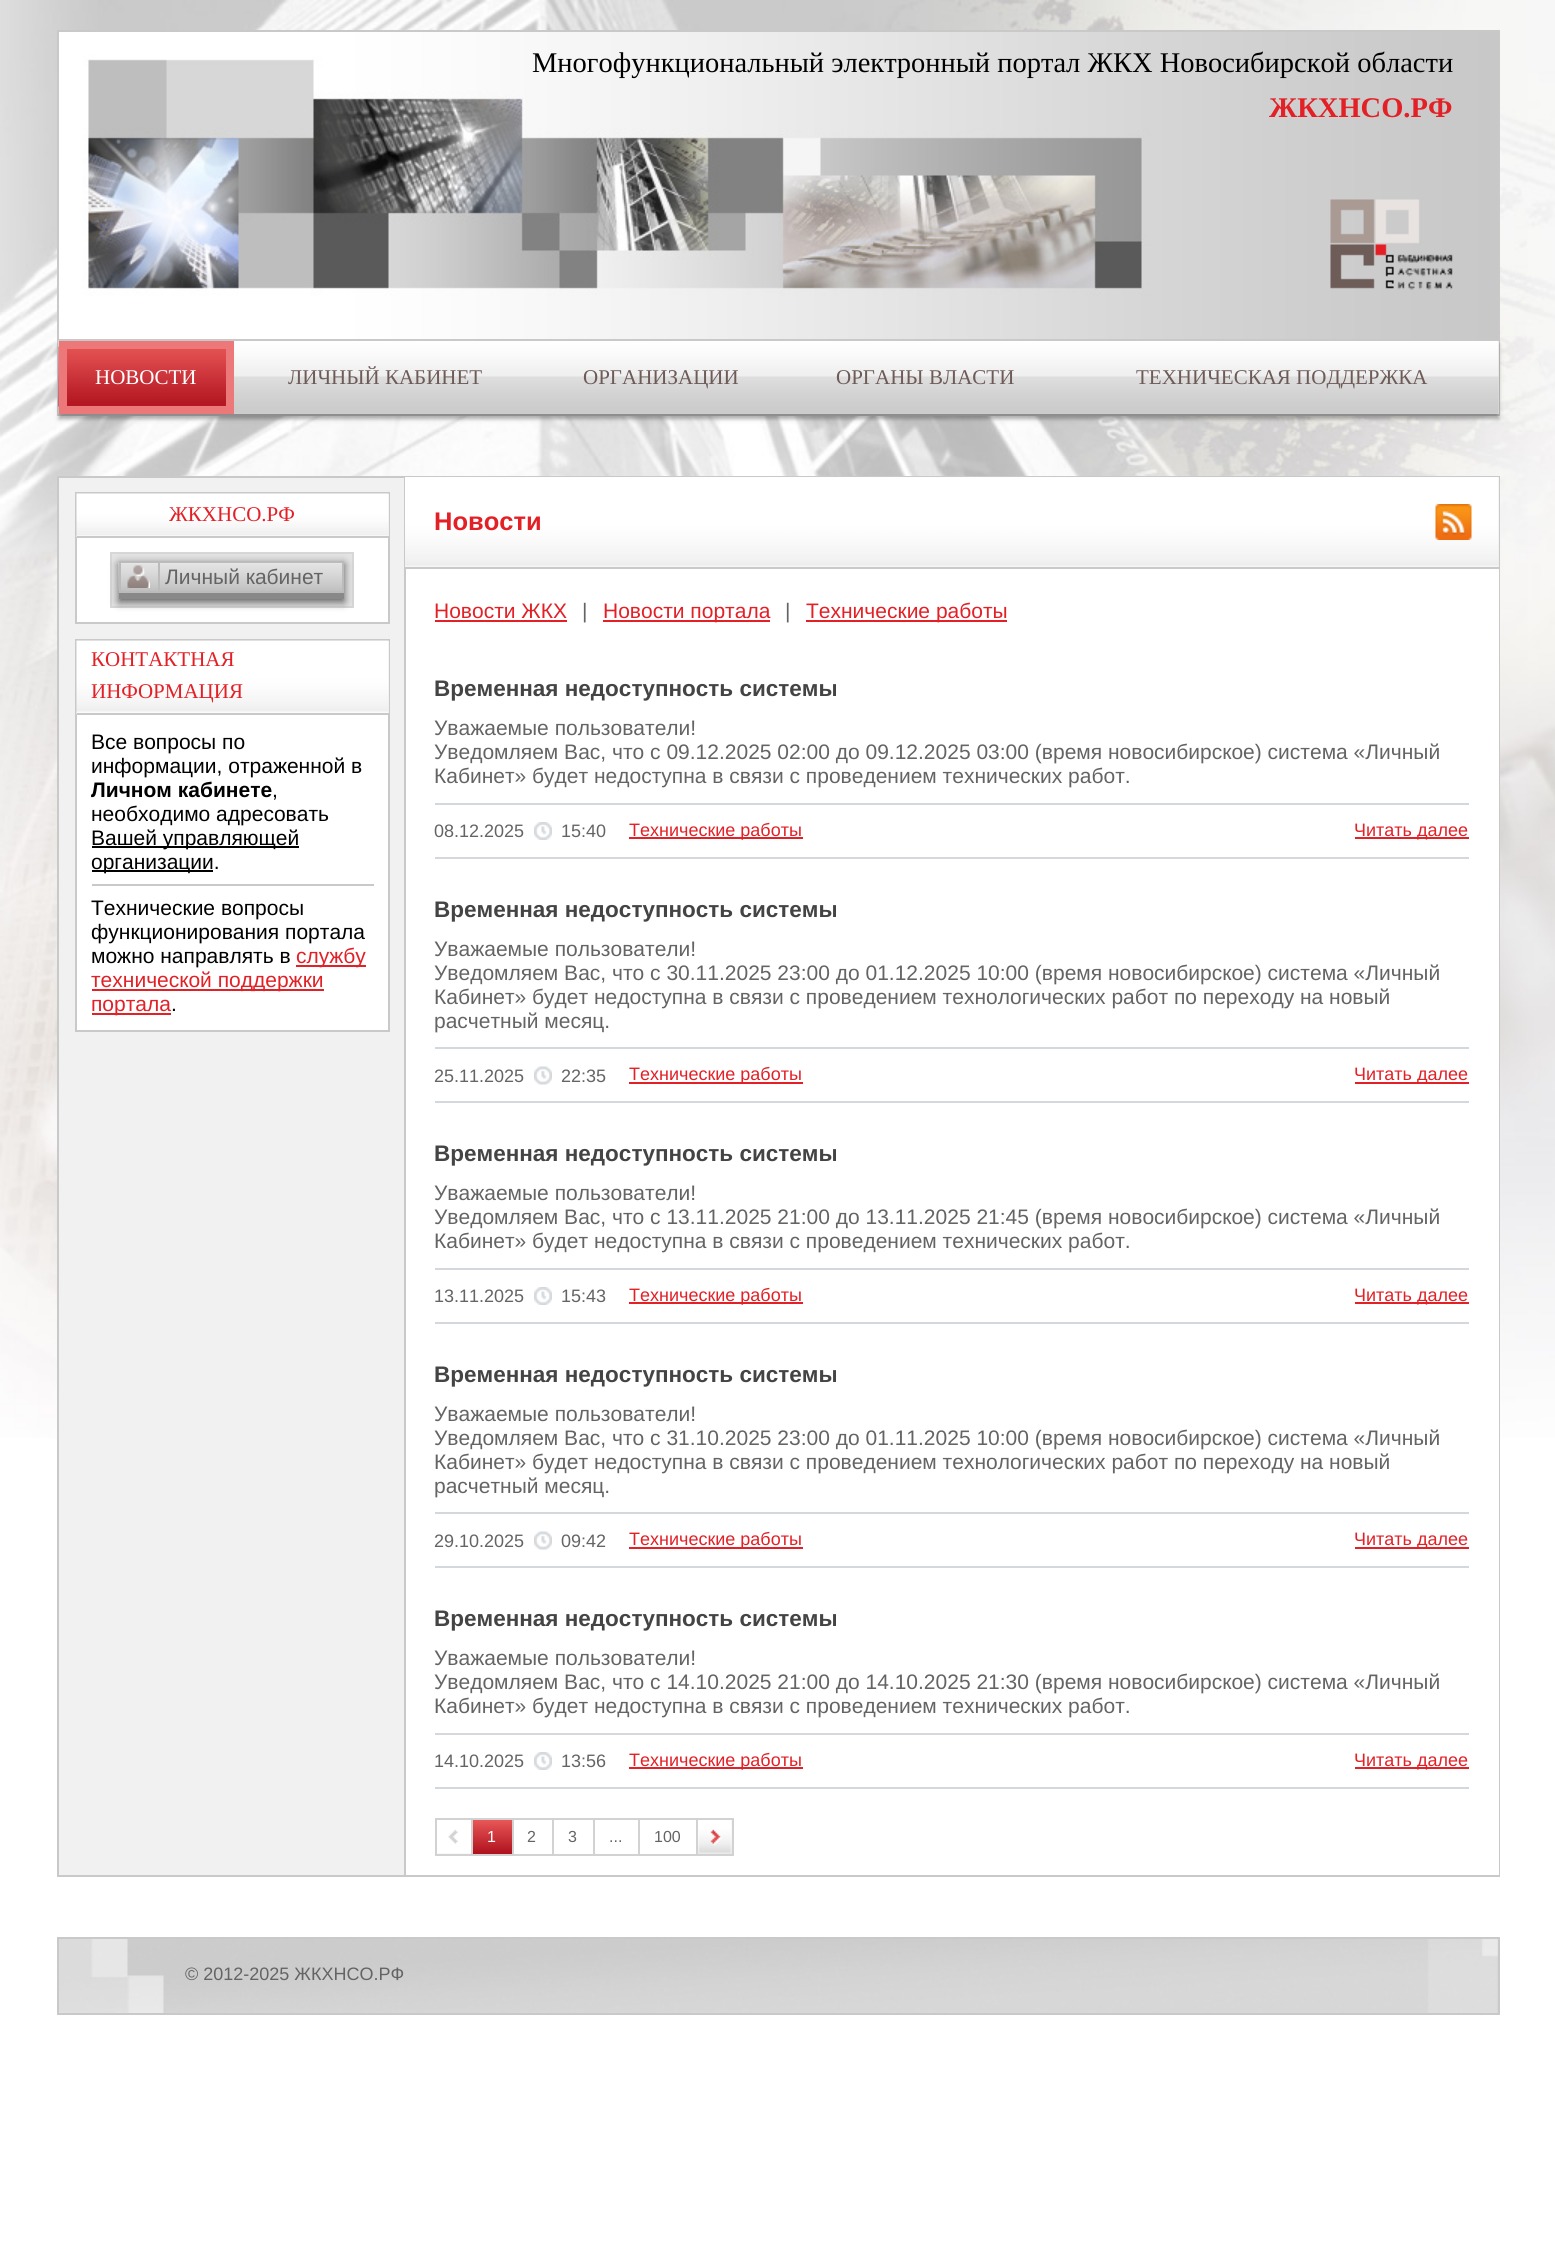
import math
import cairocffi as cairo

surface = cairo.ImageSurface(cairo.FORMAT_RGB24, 1555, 2254)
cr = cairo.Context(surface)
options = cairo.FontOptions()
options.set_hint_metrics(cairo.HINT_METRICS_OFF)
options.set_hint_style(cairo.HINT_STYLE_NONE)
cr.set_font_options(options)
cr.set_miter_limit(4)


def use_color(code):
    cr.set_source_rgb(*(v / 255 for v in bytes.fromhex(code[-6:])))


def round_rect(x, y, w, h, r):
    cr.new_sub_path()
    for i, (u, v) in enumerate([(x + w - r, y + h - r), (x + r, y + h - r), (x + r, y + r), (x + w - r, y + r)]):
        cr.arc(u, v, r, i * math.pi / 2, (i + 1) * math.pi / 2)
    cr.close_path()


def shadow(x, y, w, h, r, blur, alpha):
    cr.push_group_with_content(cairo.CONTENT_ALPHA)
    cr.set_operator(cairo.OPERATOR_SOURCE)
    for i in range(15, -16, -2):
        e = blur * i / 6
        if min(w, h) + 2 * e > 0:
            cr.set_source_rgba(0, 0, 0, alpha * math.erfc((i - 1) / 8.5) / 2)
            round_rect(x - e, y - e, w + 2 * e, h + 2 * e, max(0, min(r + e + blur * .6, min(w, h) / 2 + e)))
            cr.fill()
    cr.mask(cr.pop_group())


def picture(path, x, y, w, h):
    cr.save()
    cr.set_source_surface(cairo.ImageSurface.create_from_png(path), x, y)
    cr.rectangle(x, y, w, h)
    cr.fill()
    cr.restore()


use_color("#ffffff")
cr.paint()
picture("img1.png", 0, 0, 1555, 1438)
picture("img2.png", 59, 32, 1439, 307)
cr.rectangle(58, 31, 1441, 384)
use_color("#c9c9c9")
cr.stroke()
cr.select_font_face("Liberation Serif")
cr.set_font_size(28.5)
use_color("#000000")
cr.move_to(532, 72)
cr.show_text("Многофункциональный электронный портал ЖКХ Новосибирской области")
cr.select_font_face("Liberation Serif", cairo.FONT_SLANT_NORMAL, cairo.FONT_WEIGHT_BOLD)
use_color("#e22026")
cr.move_to(1269, 117)
cr.show_text("ЖКХНСО.РФ")
picture("img3.png", 1330, 199, 123, 91)
use_color("#323232")
shadow(59, 344, 1440, 75, 0, 2, 0.4)
use_color("#dedede")
cr.rectangle(1498, 341, 1, 73)
cr.fill()
picture("img4.png", 58, 340, 1441, 74)
picture("img5.png", 58, 340, 168, 67)
use_color("#c9c9c9")
cr.rectangle(59, 339, 1440, 2)
cr.fill()
cr.rectangle(63, 345, 167, 65)
use_color("#ec7879")
cr.set_line_width(8)
cr.stroke()
cr.select_font_face("Liberation Serif")
cr.set_font_size(21)
use_color("#ffffff")
cr.move_to(95, 384)
cr.show_text("НОВОСТИ")
use_color("#6d5b58")
cr.move_to(288, 384)
cr.show_text("ЛИЧНЫЙ КАБИНЕТ")
cr.move_to(583, 384)
cr.show_text("ОРГАНИЗАЦИИ")
cr.move_to(836, 384)
cr.show_text("ОРГАНЫ ВЛАСТИ")
cr.move_to(1136, 384)
cr.show_text("ТЕХНИЧЕСКАЯ ПОДДЕРЖКА")
use_color("#f1f1f1")
cr.rectangle(59, 478, 345, 1397)
cr.fill()
cr.rectangle(58, 477, 1441, 1399)
use_color("#c9c9c9")
cr.set_line_width(2)
cr.stroke()
use_color("#ffffff")
cr.rectangle(406, 569, 1093, 1306)
cr.fill()
use_color("#c9c9c9")
cr.rectangle(404, 477, 2, 1398)
cr.fill()
use_color("#ffffff")
cr.rectangle(77, 538, 311, 84)
cr.fill()
cr.rectangle(76, 493, 313, 130)
use_color("#c9c9c9")
cr.stroke()
use_color("#ededed")
cr.rectangle(388, 494, 1, 42)
cr.fill()
picture("img6.png", 76, 493, 313, 44)
use_color("#c9c9c9")
cr.rectangle(77, 536, 312, 2)
cr.fill()
use_color("#e22026")
cr.move_to(169, 521)
cr.show_text("ЖКХНСО.РФ")
use_color("#e4e4e4")
cr.rectangle(111, 553, 242, 54)
cr.fill_preserve()
use_color("#d7d7d7")
cr.stroke()
use_color("#000000")
shadow(119, 564, 225, 38, 0, 4.5, 0.6)
use_color("#898989")
cr.rectangle(119, 593, 225, 6)
cr.fill()
picture("img7.png", 118, 562, 224, 29)
cr.rectangle(120, 562, 223, 30)
use_color("#bbbbbb")
cr.stroke()
picture("img8.png", 127, 565, 23, 23)
cr.rectangle(158, 563, 2, 28)
cr.fill()
cr.select_font_face("Liberation Sans")
use_color("#646464")
cr.move_to(165, 584)
cr.show_text("Личный кабинет")
use_color("#ffffff")
cr.rectangle(77, 715, 311, 315)
cr.fill()
cr.rectangle(76, 640, 313, 391)
use_color("#c9c9c9")
cr.stroke()
use_color("#ededed")
cr.rectangle(388, 641, 1, 72)
cr.fill()
picture("img9.png", 76, 640, 313, 74)
use_color("#c9c9c9")
cr.rectangle(77, 713, 312, 2)
cr.fill()
cr.select_font_face("Liberation Serif")
use_color("#e22026")
cr.move_to(91, 666)
cr.show_text("КОНТАКТНАЯ")
cr.move_to(91, 698)
cr.show_text("ИНФОРМАЦИЯ")
cr.select_font_face("Liberation Sans")
use_color("#000000")
cr.move_to(91, 749)
cr.show_text("Все вопросы по")
cr.move_to(91, 773)
cr.show_text("информации, отраженной в")
cr.select_font_face("Liberation Sans", cairo.FONT_SLANT_NORMAL, cairo.FONT_WEIGHT_BOLD)
cr.move_to(91, 797)
cr.show_text("Личном кабинете")
cr.select_font_face("Liberation Sans")
cr.move_to(272, 797)
cr.show_text(",")
cr.move_to(91, 821)
cr.show_text("необходимо адресовать")
cr.rectangle(92, 846, 207, 2)
cr.fill()
cr.move_to(91, 845)
cr.show_text("Вашей управляющей")
cr.rectangle(92, 870, 121, 2)
cr.fill()
cr.move_to(91, 869)
cr.show_text("организации.")
use_color("#c9c9c9")
cr.rectangle(92, 884, 282, 2)
cr.fill()
use_color("#000000")
cr.move_to(91, 915)
cr.show_text("Технические вопросы")
cr.move_to(91, 939)
cr.show_text("функционирования портала")
cr.move_to(91, 963)
cr.show_text("можно направлять в")
use_color("#e22026")
cr.rectangle(296, 965, 70, 2)
cr.fill()
cr.move_to(296, 963)
cr.show_text("службу")
cr.rectangle(92, 989, 232, 2)
cr.fill()
cr.move_to(91, 987)
cr.show_text("технической поддержки")
cr.rectangle(92, 1013, 79, 2)
cr.fill()
cr.move_to(91, 1011)
cr.show_text("портала")
use_color("#000000")
cr.move_to(171, 1011)
cr.show_text(".")
use_color("#ededed")
cr.rectangle(1498, 477, 1, 90)
cr.fill()
picture("img10.png", 405, 477, 1094, 90)
use_color("#c9c9c9")
cr.rectangle(405, 567, 1094, 2)
cr.fill()
cr.select_font_face("Liberation Sans", cairo.FONT_SLANT_NORMAL, cairo.FONT_WEIGHT_BOLD)
cr.set_font_size(25.5)
use_color("#e22026")
cr.move_to(434, 530)
cr.show_text("Новости")
picture("img11.png", 1435, 504, 37, 36)
cr.select_font_face("Liberation Sans")
cr.set_font_size(21)
cr.move_to(434, 618)
cr.show_text("Новости ЖКХ")
cr.rectangle(435, 620, 132, 2)
cr.fill()
use_color("#646464")
cr.move_to(582, 618)
cr.show_text("|")
use_color("#e22026")
cr.rectangle(603, 620, 167, 2)
cr.fill()
cr.move_to(603, 618)
cr.show_text("Новости портала")
use_color("#646464")
cr.move_to(785, 618)
cr.show_text("|")
use_color("#e22026")
cr.rectangle(806, 620, 201, 2)
cr.fill()
cr.move_to(806, 618)
cr.show_text("Технические работы")
cr.select_font_face("Liberation Sans", cairo.FONT_SLANT_NORMAL, cairo.FONT_WEIGHT_BOLD)
cr.set_font_size(22.5)
use_color("#444444")
cr.move_to(434, 696)
cr.show_text("Временная недоступность системы")
cr.select_font_face("Liberation Sans")
cr.set_font_size(21)
use_color("#646464")
cr.move_to(434, 735)
cr.show_text("Уважаемые пользователи!")
cr.move_to(434, 759)
cr.show_text("Уведомляем Вас, что c 09.12.2025 02:00 до 09.12.2025 03:00 (время новосибирское) система «Личный")
cr.move_to(434, 783)
cr.show_text("Кабинет» будет недоступна в связи с проведением технических работ.")
use_color("#d4d7db")
cr.rectangle(435, 803, 1034, 2)
cr.fill()
cr.rectangle(435, 857, 1034, 2)
cr.fill()
cr.set_font_size(18)
use_color("#646464")
cr.move_to(434, 837)
cr.show_text("08.12.2025")
picture("img12.png", 534, 822, 18, 18)
cr.move_to(561, 837)
cr.show_text("15:40")
use_color("#e22026")
cr.rectangle(629, 837, 174, 2)
cr.fill()
cr.move_to(629, 836)
cr.show_text("Технические работы")
cr.rectangle(1355, 837, 114, 2)
cr.fill()
cr.move_to(1354, 836)
cr.show_text("Читать далее")
cr.select_font_face("Liberation Sans", cairo.FONT_SLANT_NORMAL, cairo.FONT_WEIGHT_BOLD)
cr.set_font_size(22.5)
use_color("#444444")
cr.move_to(434, 917)
cr.show_text("Временная недоступность системы")
cr.select_font_face("Liberation Sans")
cr.set_font_size(21)
use_color("#646464")
cr.move_to(434, 956)
cr.show_text("Уважаемые пользователи!")
cr.move_to(434, 980)
cr.show_text("Уведомляем Вас, что c 30.11.2025 23:00 до 01.12.2025 10:00 (время новосибирское) система «Личный")
cr.move_to(434, 1004)
cr.show_text("Кабинет» будет недоступна в связи с проведением технологических работ по переходу на новый")
cr.move_to(434, 1028)
cr.show_text("расчетный месяц.")
use_color("#d4d7db")
cr.rectangle(435, 1047, 1034, 2)
cr.fill()
cr.rectangle(435, 1101, 1034, 2)
cr.fill()
cr.set_font_size(18)
use_color("#646464")
cr.move_to(434, 1082)
cr.show_text("25.11.2025")
picture("img13.png", 534, 1066, 18, 19)
cr.move_to(561, 1082)
cr.show_text("22:35")
use_color("#e22026")
cr.rectangle(629, 1082, 174, 2)
cr.fill()
cr.move_to(629, 1080)
cr.show_text("Технические работы")
cr.rectangle(1355, 1082, 114, 2)
cr.fill()
cr.move_to(1354, 1080)
cr.show_text("Читать далее")
cr.select_font_face("Liberation Sans", cairo.FONT_SLANT_NORMAL, cairo.FONT_WEIGHT_BOLD)
cr.set_font_size(22.5)
use_color("#444444")
cr.move_to(434, 1161)
cr.show_text("Временная недоступность системы")
cr.select_font_face("Liberation Sans")
cr.set_font_size(21)
use_color("#646464")
cr.move_to(434, 1200)
cr.show_text("Уважаемые пользователи!")
cr.move_to(434, 1224)
cr.show_text("Уведомляем Вас, что c 13.11.2025 21:00 до 13.11.2025 21:45 (время новосибирское) система «Личный")
cr.move_to(434, 1248)
cr.show_text("Кабинет» будет недоступна в связи с проведением технических работ.")
use_color("#d4d7db")
cr.rectangle(435, 1268, 1034, 2)
cr.fill()
cr.rectangle(435, 1322, 1034, 2)
cr.fill()
cr.set_font_size(18)
use_color("#646464")
cr.move_to(434, 1302)
cr.show_text("13.11.2025")
picture("img12.png", 534, 1287, 18, 18)
cr.move_to(561, 1302)
cr.show_text("15:43")
use_color("#e22026")
cr.rectangle(629, 1302, 174, 2)
cr.fill()
cr.move_to(629, 1301)
cr.show_text("Технические работы")
cr.rectangle(1355, 1302, 114, 2)
cr.fill()
cr.move_to(1354, 1301)
cr.show_text("Читать далее")
cr.select_font_face("Liberation Sans", cairo.FONT_SLANT_NORMAL, cairo.FONT_WEIGHT_BOLD)
cr.set_font_size(22.5)
use_color("#444444")
cr.move_to(434, 1382)
cr.show_text("Временная недоступность системы")
cr.select_font_face("Liberation Sans")
cr.set_font_size(21)
use_color("#646464")
cr.move_to(434, 1421)
cr.show_text("Уважаемые пользователи!")
cr.move_to(434, 1445)
cr.show_text("Уведомляем Вас, что c 31.10.2025 23:00 до 01.11.2025 10:00 (время новосибирское) система «Личный")
cr.move_to(434, 1469)
cr.show_text("Кабинет» будет недоступна в связи с проведением технологических работ по переходу на новый")
cr.move_to(434, 1493)
cr.show_text("расчетный месяц.")
use_color("#d4d7db")
cr.rectangle(435, 1512, 1034, 2)
cr.fill()
cr.rectangle(435, 1566, 1034, 2)
cr.fill()
cr.set_font_size(18)
use_color("#646464")
cr.move_to(434, 1547)
cr.show_text("29.10.2025")
picture("img13.png", 534, 1531, 18, 19)
cr.move_to(561, 1547)
cr.show_text("09:42")
use_color("#e22026")
cr.rectangle(629, 1547, 174, 2)
cr.fill()
cr.move_to(629, 1545)
cr.show_text("Технические работы")
cr.rectangle(1355, 1547, 114, 2)
cr.fill()
cr.move_to(1354, 1545)
cr.show_text("Читать далее")
cr.select_font_face("Liberation Sans", cairo.FONT_SLANT_NORMAL, cairo.FONT_WEIGHT_BOLD)
cr.set_font_size(22.5)
use_color("#444444")
cr.move_to(434, 1626)
cr.show_text("Временная недоступность системы")
cr.select_font_face("Liberation Sans")
cr.set_font_size(21)
use_color("#646464")
cr.move_to(434, 1665)
cr.show_text("Уважаемые пользователи!")
cr.move_to(434, 1689)
cr.show_text("Уведомляем Вас, что c 14.10.2025 21:00 до 14.10.2025 21:30 (время новосибирское) система «Личный")
cr.move_to(434, 1713)
cr.show_text("Кабинет» будет недоступна в связи с проведением технических работ.")
use_color("#d4d7db")
cr.rectangle(435, 1733, 1034, 2)
cr.fill()
cr.rectangle(435, 1787, 1034, 2)
cr.fill()
cr.set_font_size(18)
use_color("#646464")
cr.move_to(434, 1767)
cr.show_text("14.10.2025")
picture("img12.png", 534, 1752, 18, 18)
cr.move_to(561, 1767)
cr.show_text("13:56")
use_color("#e22026")
cr.rectangle(629, 1767, 174, 2)
cr.fill()
cr.move_to(629, 1766)
cr.show_text("Технические работы")
cr.rectangle(1355, 1767, 114, 2)
cr.fill()
cr.move_to(1354, 1766)
cr.show_text("Читать далее")
picture("img14.png", 437, 1820, 34, 34)
use_color("#d2d2d2")
cr.rectangle(435, 1818, 261, 2)
cr.fill()
cr.rectangle(435, 1854, 261, 2)
cr.fill()
cr.rectangle(435, 1818, 2, 38)
cr.fill()
picture("img15.png", 698, 1820, 34, 34)
cr.rectangle(697, 1819, 36, 36)
cr.stroke()
gradient = cairo.LinearGradient(492, 1820, 492, 1854)
gradient.add_color_stop_rgba(0, 0.91, 0.341, 0.345, 1)
gradient.add_color_stop_rgba(1, 0.686, 0.067, 0.114, 1)
cr.set_source(gradient)
cr.rectangle(473, 1820, 39, 34)
cr.fill()
use_color("#d2d2d2")
cr.rectangle(471, 1818, 2, 38)
cr.fill()
cr.set_font_size(16)
use_color("#ffffff")
cr.move_to(487, 1842)
cr.show_text("1")
use_color("#d2d2d2")
cr.rectangle(512, 1818, 2, 38)
cr.fill()
use_color("#646464")
cr.move_to(527, 1842)
cr.show_text("2")
use_color("#d2d2d2")
cr.rectangle(552, 1818, 2, 38)
cr.fill()
use_color("#646464")
cr.move_to(568, 1842)
cr.show_text("3")
use_color("#d2d2d2")
cr.rectangle(593, 1818, 2, 38)
cr.fill()
use_color("#646464")
cr.move_to(609, 1842)
cr.show_text("...")
use_color("#d2d2d2")
cr.rectangle(638, 1818, 2, 38)
cr.fill()
use_color("#646464")
cr.move_to(654, 1842)
cr.show_text("100")
picture("img16.png", 59, 1939, 1439, 74)
cr.rectangle(58, 1938, 1441, 76)
use_color("#c9c9c9")
cr.stroke()
cr.set_font_size(18)
use_color("#646464")
cr.move_to(185, 1980)
cr.show_text("© 2012-2025 ЖКХНСО.РФ")
surface.write_to_png("result.png")
